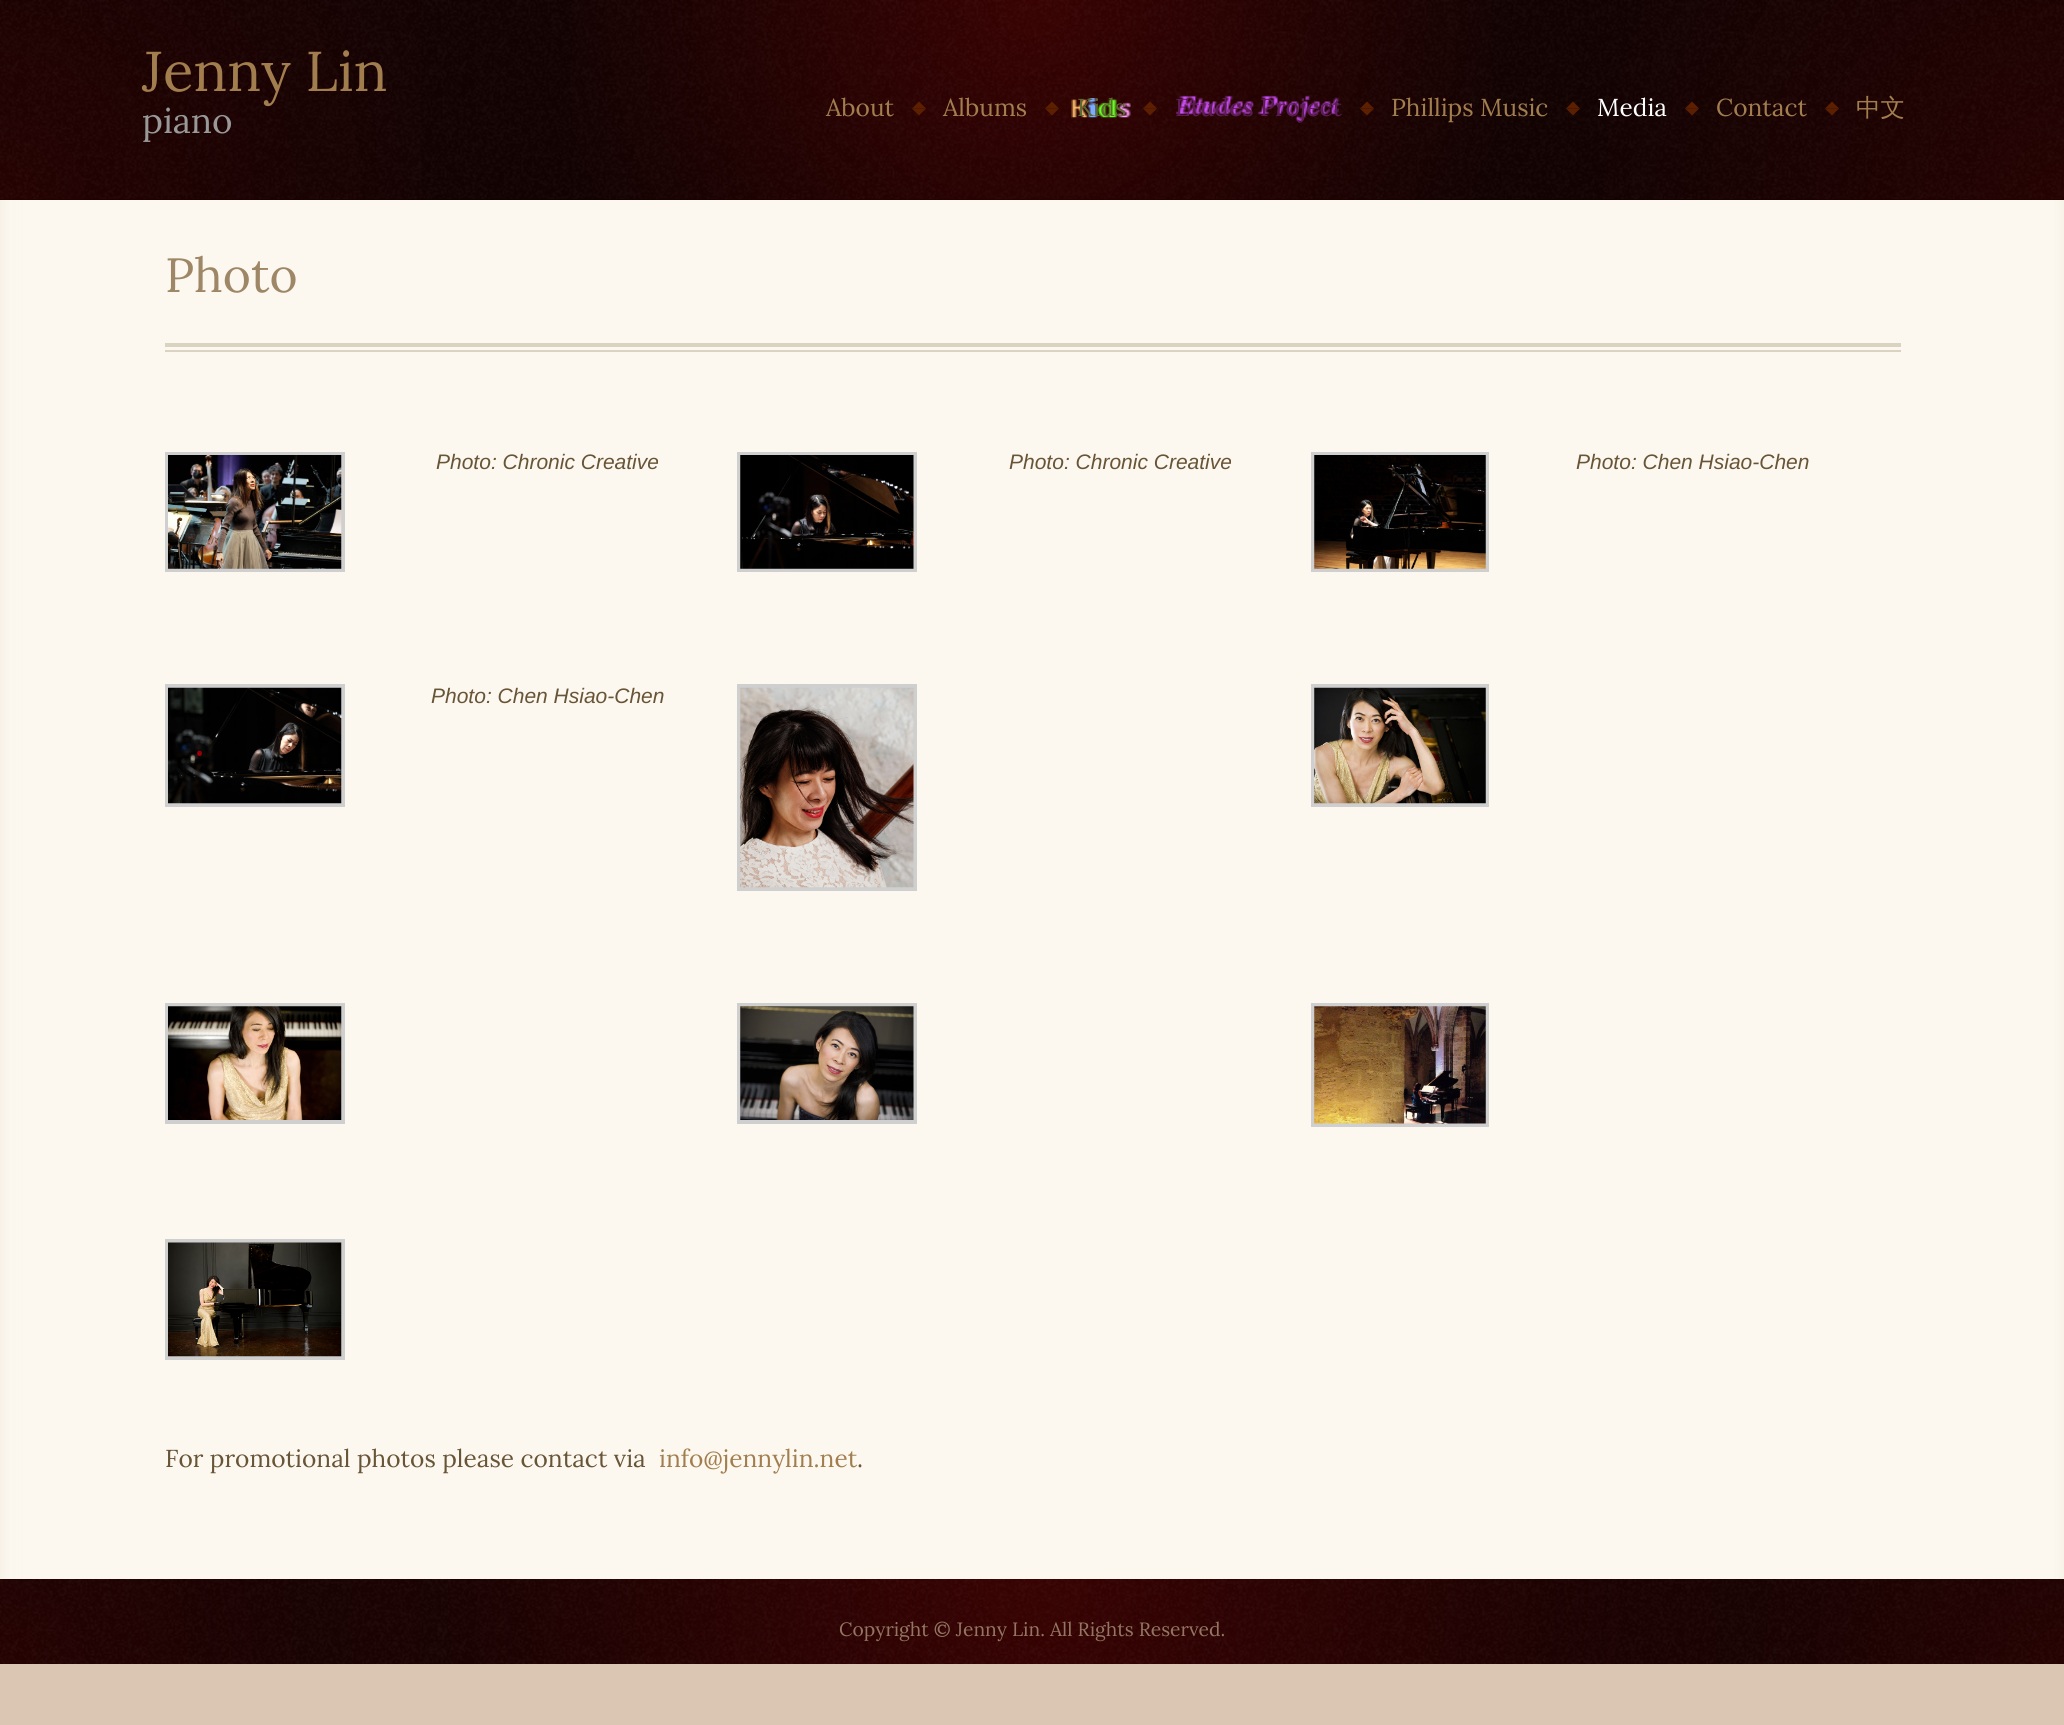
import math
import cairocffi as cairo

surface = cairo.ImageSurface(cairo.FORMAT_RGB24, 2064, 1725)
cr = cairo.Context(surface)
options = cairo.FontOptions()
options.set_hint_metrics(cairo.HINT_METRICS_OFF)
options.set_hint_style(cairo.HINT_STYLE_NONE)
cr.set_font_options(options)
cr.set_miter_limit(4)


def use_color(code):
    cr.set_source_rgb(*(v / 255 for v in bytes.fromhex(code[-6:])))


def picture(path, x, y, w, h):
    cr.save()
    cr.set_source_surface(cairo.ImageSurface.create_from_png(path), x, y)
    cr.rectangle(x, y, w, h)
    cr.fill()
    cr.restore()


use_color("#ffffff")
cr.paint()
gradient = cairo.RadialGradient(2065, 200, 0, 2065, 200, 2075)
gradient.add_color_stop_rgba(0, 0.145, 0.008, 0.008, 1)
gradient.add_color_stop_rgba(0.24, 0.071, 0.008, 0.008, 1)
cr.set_source(gradient)
cr.rectangle(0, 0, 2064, 200)
cr.fill()
gradient = cairo.RadialGradient(0, 200, 0, 0, 200, 2075)
gradient.add_color_stop_rgba(0, 0.369, 0.008, 0.008, 0.25)
gradient.add_color_stop_rgba(0.24, 0.369, 0.008, 0.008, 0)
cr.set_source(gradient)
cr.rectangle(0, 0, 421, 200)
cr.fill()
gradient = cairo.RadialGradient(1033, 0, 0, 1033, 0, 1052)
gradient.add_color_stop_rgba(0, 0.369, 0.008, 0.008, 0.5)
gradient.add_color_stop_rgba(0.47, 0.369, 0.008, 0.008, 0)
cr.set_source(gradient)
cr.rectangle(573, 0, 920, 200)
cr.fill()
picture("img1.png", 0, 0, 2064, 199)
cr.select_font_face("Lora")
cr.set_font_size(56)
use_color("#a27e4f")
cr.move_to(142, 91)
cr.show_text("Jenny Lin")
cr.set_font_size(35)
use_color("#999999")
cr.move_to(142, 133)
cr.show_text("piano")
cr.set_font_size(24.5)
use_color("#a27e4f")
cr.move_to(826, 116)
cr.show_text("About")
use_color("#5c1f00")
cr.new_path()
cr.move_to(926, 108.5)
cr.line_to(912, 108.5)
cr.line_to(919, 101.5)
cr.close_path()
cr.fill()
use_color("#a27e4f")
cr.move_to(943, 116)
cr.show_text("Albums")
use_color("#5c1f00")
cr.new_path()
cr.move_to(912, 108.5)
cr.line_to(926, 108.5)
cr.line_to(919, 115.5)
cr.close_path()
cr.fill()
cr.new_path()
cr.move_to(1059, 108.5)
cr.line_to(1045, 108.5)
cr.line_to(1052, 101.5)
cr.close_path()
cr.fill()
picture("img2.png", 1071, 98, 60, 20)
use_color("#5d6933")
cr.move_to(1077, 116)
cr.show_text("Kids")
use_color("#5c1f00")
cr.new_path()
cr.move_to(1045, 108.5)
cr.line_to(1059, 108.5)
cr.line_to(1052, 115.5)
cr.close_path()
cr.fill()
cr.new_path()
cr.move_to(1157, 108.5)
cr.line_to(1143, 108.5)
cr.line_to(1150, 101.5)
cr.close_path()
cr.fill()
picture("img3.png", 1176, 95, 163, 26)
use_color("#5c1c54")
cr.move_to(1175, 116)
cr.show_text("Etudes Project")
use_color("#5c1f00")
cr.new_path()
cr.move_to(1143, 108.5)
cr.line_to(1157, 108.5)
cr.line_to(1150, 115.5)
cr.close_path()
cr.fill()
cr.new_path()
cr.move_to(1374, 108.5)
cr.line_to(1360, 108.5)
cr.line_to(1367, 101.5)
cr.close_path()
cr.fill()
use_color("#a27e4f")
cr.move_to(1391, 116)
cr.show_text("Phillips Music")
use_color("#5c1f00")
cr.new_path()
cr.move_to(1360, 108.5)
cr.line_to(1374, 108.5)
cr.line_to(1367, 115.5)
cr.close_path()
cr.fill()
cr.new_path()
cr.move_to(1580, 108.5)
cr.line_to(1566, 108.5)
cr.line_to(1573, 101.5)
cr.close_path()
cr.fill()
use_color("#ffffff")
cr.move_to(1597, 116)
cr.show_text("Media")
use_color("#5c1f00")
cr.new_path()
cr.move_to(1566, 108.5)
cr.line_to(1580, 108.5)
cr.line_to(1573, 115.5)
cr.close_path()
cr.fill()
cr.new_path()
cr.move_to(1699, 108.5)
cr.line_to(1685, 108.5)
cr.line_to(1692, 101.5)
cr.close_path()
cr.fill()
use_color("#a27e4f")
cr.move_to(1716, 116)
cr.show_text("Contact")
use_color("#5c1f00")
cr.new_path()
cr.move_to(1685, 108.5)
cr.line_to(1699, 108.5)
cr.line_to(1692, 115.5)
cr.close_path()
cr.fill()
cr.new_path()
cr.move_to(1839, 108.5)
cr.line_to(1825, 108.5)
cr.line_to(1832, 101.5)
cr.close_path()
cr.fill()
cr.select_font_face("WenQuanYi Zen Hei Medium")
use_color("#a27e4f")
cr.move_to(1856, 116)
cr.show_text("中文")
use_color("#5c1f00")
cr.new_path()
cr.move_to(1825, 108.5)
cr.line_to(1839, 108.5)
cr.line_to(1832, 115.5)
cr.close_path()
cr.fill()
picture("img4.png", 0, 200, 2064, 1379)
use_color("#dbd3c2")
cr.rectangle(165, 343, 1736, 4)
cr.fill()
cr.select_font_face("Lora")
cr.set_font_size(48)
use_color("#9e8766")
cr.move_to(165, 292)
cr.show_text("Photo")
use_color("#dbd3c2")
cr.rectangle(165, 350, 1736, 2)
cr.fill()
cr.rectangle(167, 454, 176, 116)
use_color("#cfcfcf")
cr.set_line_width(4)
cr.stroke()
picture("img5.png", 168, 455, 174, 114)
cr.select_font_face("Liberation Sans", cairo.FONT_SLANT_ITALIC)
cr.set_font_size(21)
use_color("#685436")
cr.move_to(436, 469)
cr.show_text("Photo: Chronic Creative")
cr.rectangle(739, 454, 176, 116)
use_color("#cfcfcf")
cr.stroke()
picture("img6.png", 740, 455, 174, 114)
use_color("#685436")
cr.move_to(1009, 469)
cr.show_text("Photo: Chronic Creative")
cr.rectangle(1313, 454, 174, 116)
use_color("#cfcfcf")
cr.stroke()
picture("img7.png", 1314, 455, 172, 114)
use_color("#685436")
cr.move_to(1576, 469)
cr.show_text("Photo: Chen Hsiao-Chen")
cr.rectangle(167, 686, 176, 119)
use_color("#cfcfcf")
cr.stroke()
picture("img8.png", 168, 687, 174, 117)
use_color("#685436")
cr.move_to(431, 703)
cr.show_text("Photo: Chen Hsiao-Chen")
cr.rectangle(739, 686, 176, 203)
use_color("#cfcfcf")
cr.stroke()
picture("img9.png", 740, 687, 174, 201)
cr.rectangle(1313, 686, 174, 119)
cr.stroke()
picture("img10.png", 1314, 687, 172, 117)
cr.rectangle(167, 1005, 176, 117)
cr.stroke()
picture("img11.png", 168, 1006, 174, 114)
cr.rectangle(739, 1005, 176, 117)
cr.stroke()
picture("img12.png", 740, 1006, 174, 114)
cr.rectangle(1313, 1005, 174, 120)
cr.stroke()
picture("img13.png", 1314, 1006, 172, 118)
cr.rectangle(167, 1241, 176, 117)
cr.stroke()
picture("img14.png", 168, 1242, 174, 115)
cr.select_font_face("Lora")
cr.set_font_size(24.5)
use_color("#685436")
cr.move_to(165, 1467)
cr.show_text("For promotional photos please contact via")
use_color("#a27e4f")
cr.move_to(659, 1467)
cr.show_text("info@jennylin.net")
use_color("#685436")
cr.move_to(857, 1467)
cr.show_text(".")
gradient = cairo.RadialGradient(2065, 1664, 0, 2065, 1664, 2067)
gradient.add_color_stop_rgba(0, 0.145, 0.008, 0.008, 1)
gradient.add_color_stop_rgba(0.24, 0.071, 0.008, 0.008, 1)
cr.set_source(gradient)
cr.rectangle(0, 1579, 2064, 85)
cr.fill()
gradient = cairo.RadialGradient(0, 1664, 0, 0, 1664, 2067)
gradient.add_color_stop_rgba(0, 0.369, 0.008, 0.008, 0.25)
gradient.add_color_stop_rgba(0.24, 0.369, 0.008, 0.008, 0)
cr.set_source(gradient)
cr.rectangle(0, 1579, 420, 85)
cr.fill()
gradient = cairo.RadialGradient(1033, 1579, 0, 1033, 1579, 1036)
gradient.add_color_stop_rgba(0, 0.369, 0.008, 0.008, 0.5)
gradient.add_color_stop_rgba(0.71, 0.369, 0.008, 0.008, 0)
cr.set_source(gradient)
cr.rectangle(349, 1579, 1368, 85)
cr.fill()
picture("img15.png", 0, 1579, 2064, 85)
cr.set_font_size(19.25)
use_color("#937662")
cr.move_to(839, 1636)
cr.show_text("Copyright © Jenny Lin. All Rights Reserved.")
use_color("#dbc6b3")
cr.rectangle(0, 1664, 2064, 61)
cr.fill()
surface.write_to_png("result.png")
